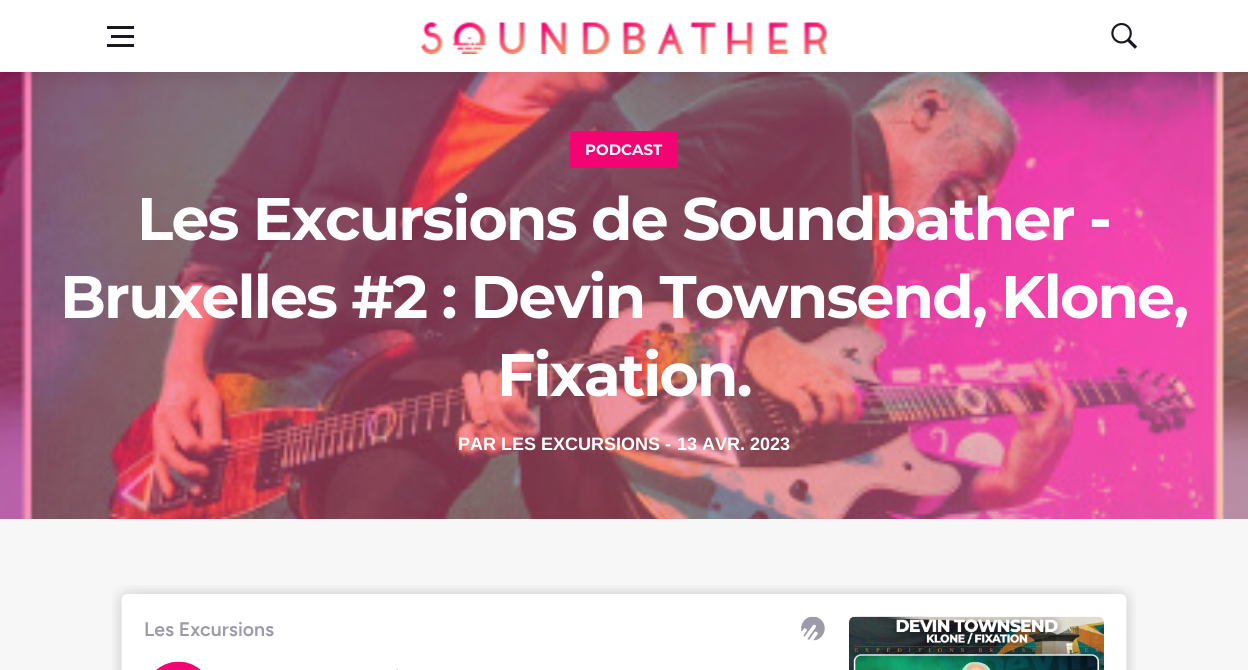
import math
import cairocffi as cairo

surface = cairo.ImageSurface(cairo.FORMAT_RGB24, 1248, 670)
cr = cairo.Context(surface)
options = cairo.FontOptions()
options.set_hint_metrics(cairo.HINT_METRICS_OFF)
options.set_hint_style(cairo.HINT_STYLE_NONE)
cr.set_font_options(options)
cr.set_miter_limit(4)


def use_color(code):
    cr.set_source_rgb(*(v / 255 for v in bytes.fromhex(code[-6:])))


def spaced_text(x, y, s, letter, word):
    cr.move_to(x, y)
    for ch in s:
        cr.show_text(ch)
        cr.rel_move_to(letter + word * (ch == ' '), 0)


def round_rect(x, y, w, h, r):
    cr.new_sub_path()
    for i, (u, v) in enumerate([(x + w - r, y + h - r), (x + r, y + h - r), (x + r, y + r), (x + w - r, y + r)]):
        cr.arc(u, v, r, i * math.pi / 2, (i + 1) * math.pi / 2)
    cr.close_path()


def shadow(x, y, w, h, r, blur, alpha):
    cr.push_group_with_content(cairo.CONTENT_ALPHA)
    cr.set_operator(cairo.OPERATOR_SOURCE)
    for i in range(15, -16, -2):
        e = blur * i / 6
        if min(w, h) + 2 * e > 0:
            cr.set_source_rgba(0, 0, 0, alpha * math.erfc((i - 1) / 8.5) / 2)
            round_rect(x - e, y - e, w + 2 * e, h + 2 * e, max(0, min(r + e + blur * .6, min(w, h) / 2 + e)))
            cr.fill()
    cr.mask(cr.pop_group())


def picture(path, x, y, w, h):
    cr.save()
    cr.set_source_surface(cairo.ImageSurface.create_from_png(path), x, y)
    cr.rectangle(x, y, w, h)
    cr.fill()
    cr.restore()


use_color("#f7f7f7")
cr.paint()
picture("img3.png", 0, 72, 1248, 447)
use_color("#000000")
shadow(0, 3, 1248, 72, 0, 7.5, 0.1)
use_color("#ffffff")
cr.rectangle(0, 0, 1248, 72)
cr.fill()
use_color("#171821")
cr.rectangle(111, 35, 23, 3)
cr.fill()
cr.rectangle(107, 26, 27, 3)
cr.fill()
cr.rectangle(107, 44, 27, 3)
cr.fill()
picture("img1.png", 421, 22, 406, 32)
picture("img2.png", 1111, 23, 27, 26)
use_color("#f20473")
cr.rectangle(570, 131, 108, 37)
cr.fill()
cr.select_font_face("Montserrat", cairo.FONT_SLANT_NORMAL, cairo.FONT_WEIGHT_BOLD)
cr.set_font_size(15)
use_color("#ffffff")
cr.move_to(585, 155)
cr.show_text("PODCAST")
cr.set_font_size(60)
spaced_text(137, 240, "Les Excursions de Soundbather -", -1.8, 0)
spaced_text(60, 318, "Bruxelles #2 : Devin Townsend, Klone,", -1.8, 0)
spaced_text(497, 396, "Fixation.", -1.8, 0)
cr.select_font_face("Liberation Sans", cairo.FONT_SLANT_NORMAL, cairo.FONT_WEIGHT_BOLD)
cr.set_font_size(18)
cr.move_to(458, 450)
cr.show_text("PAR LES EXCURSIONS -")
cr.move_to(677, 450)
cr.show_text("13 AVR. 2023")
picture("img4.png", 112, 585, 1024, 85)
surface.write_to_png("result.png")
